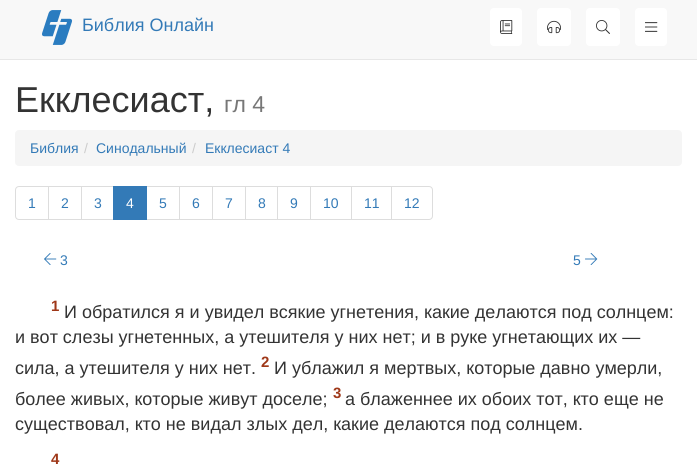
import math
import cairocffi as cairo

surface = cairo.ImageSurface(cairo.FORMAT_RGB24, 697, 467)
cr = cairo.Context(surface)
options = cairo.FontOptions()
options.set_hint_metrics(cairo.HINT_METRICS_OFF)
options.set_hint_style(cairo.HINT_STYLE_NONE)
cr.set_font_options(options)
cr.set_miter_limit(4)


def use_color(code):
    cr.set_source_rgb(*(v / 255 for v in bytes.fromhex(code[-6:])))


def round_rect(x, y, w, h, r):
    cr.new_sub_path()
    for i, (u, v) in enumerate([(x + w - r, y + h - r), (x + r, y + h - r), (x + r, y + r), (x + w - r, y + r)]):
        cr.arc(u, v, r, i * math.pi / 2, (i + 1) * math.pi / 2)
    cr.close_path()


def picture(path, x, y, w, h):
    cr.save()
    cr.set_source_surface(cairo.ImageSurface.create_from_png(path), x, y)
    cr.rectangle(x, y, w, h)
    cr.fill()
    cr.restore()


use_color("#ffffff")
cr.paint()
use_color("#f8f8f8")
cr.rectangle(0, 0, 697, 59)
cr.fill()
use_color("#e7e7e7")
cr.rectangle(0, 59, 697, 1)
cr.fill()
picture("img1.png", 42, 10, 31, 35)
cr.select_font_face("Liberation Sans")
cr.set_font_size(18)
use_color("#337ab7")
cr.move_to(82, 31)
cr.show_text("Библия Онлайн")
use_color("#ffffff")
round_rect(490, 8, 32, 38, 4)
cr.fill()
picture("img2.png", 500, 20, 13, 14)
round_rect(537, 8, 34, 38, 4)
cr.fill()
picture("img3.png", 547, 20, 14, 14)
round_rect(586, 8, 34, 38, 4)
cr.fill()
picture("img4.png", 596, 20, 14, 14)
round_rect(635, 8, 32, 38, 4)
cr.fill()
picture("img5.png", 645, 22, 13, 10)
cr.set_font_size(36)
use_color("#333333")
cr.move_to(15, 112)
cr.show_text("Екклеcиаст,")
cr.set_font_size(23)
use_color("#777777")
cr.move_to(224, 112)
cr.show_text("гл 4")
use_color("#f5f5f5")
round_rect(15, 130, 667, 36, 4)
cr.fill()
cr.set_font_size(14)
use_color("#337ab7")
cr.move_to(30, 153)
cr.show_text("Библия")
use_color("#cccccc")
cr.move_to(84, 153)
cr.show_text("/")
use_color("#337ab7")
cr.move_to(96, 153)
cr.show_text("Синодальный")
use_color("#cccccc")
cr.move_to(192, 153)
cr.show_text("/")
use_color("#337ab7")
cr.move_to(205, 153)
cr.show_text("Екклеcиаст 4")
cr.new_path()
cr.move_to(19, 186.5)
cr.line_to(48.5, 186.5)
cr.line_to(48.5, 219.5)
cr.line_to(19, 219.5)
cr.curve_to(17, 219.5, 15.5, 218, 15.5, 216)
cr.line_to(15.5, 190)
cr.curve_to(15.5, 188, 17, 186.5, 19, 186.5)
cr.close_path()
use_color("#dddddd")
cr.set_line_width(1)
cr.stroke()
use_color("#337ab7")
cr.move_to(28, 208)
cr.show_text("1")
cr.rectangle(48.5, 186.5, 33, 33)
use_color("#dddddd")
cr.stroke()
use_color("#337ab7")
cr.move_to(61, 208)
cr.show_text("2")
cr.rectangle(81.5, 186.5, 32, 33)
use_color("#dddddd")
cr.stroke()
use_color("#337ab7")
cr.move_to(94, 208)
cr.show_text("3")
cr.rectangle(146.5, 186.5, 33, 33)
use_color("#dddddd")
cr.stroke()
use_color("#337ab7")
cr.rectangle(113, 186, 34, 34)
cr.fill()
use_color("#ffffff")
cr.move_to(126, 208)
cr.show_text("4")
use_color("#337ab7")
cr.move_to(159, 208)
cr.show_text("5")
cr.rectangle(179.5, 186.5, 33, 33)
use_color("#dddddd")
cr.stroke()
use_color("#337ab7")
cr.move_to(192, 208)
cr.show_text("6")
cr.rectangle(212.5, 186.5, 33, 33)
use_color("#dddddd")
cr.stroke()
use_color("#337ab7")
cr.move_to(225, 208)
cr.show_text("7")
cr.rectangle(245.5, 186.5, 32, 33)
use_color("#dddddd")
cr.stroke()
use_color("#337ab7")
cr.move_to(258, 208)
cr.show_text("8")
cr.rectangle(277.5, 186.5, 33, 33)
use_color("#dddddd")
cr.stroke()
use_color("#337ab7")
cr.move_to(290, 208)
cr.show_text("9")
cr.rectangle(310.5, 186.5, 41, 33)
use_color("#dddddd")
cr.stroke()
use_color("#337ab7")
cr.move_to(323, 208)
cr.show_text("10")
cr.rectangle(351.5, 186.5, 40, 33)
use_color("#dddddd")
cr.stroke()
use_color("#337ab7")
cr.move_to(364, 208)
cr.show_text("11")
use_color("#ffffff")
cr.new_path()
cr.move_to(391.5, 186.5)
cr.line_to(429, 186.5)
cr.curve_to(431, 186.5, 432.5, 188, 432.5, 190)
cr.line_to(432.5, 216)
cr.curve_to(432.5, 218, 431, 219.5, 429, 219.5)
cr.line_to(391.5, 219.5)
cr.close_path()
cr.fill_preserve()
use_color("#dddddd")
cr.stroke()
use_color("#337ab7")
cr.move_to(404, 208)
cr.show_text("12")
picture("img6.png", 44, 253, 13, 12)
cr.move_to(60, 265)
cr.show_text("3")
cr.move_to(573, 265)
cr.show_text("5")
picture("img7.png", 585, 253, 13, 12)
cr.select_font_face("Liberation Sans", cairo.FONT_SLANT_NORMAL, cairo.FONT_WEIGHT_BOLD)
cr.set_font_size(15)
use_color("#9f3819")
cr.move_to(51, 311)
cr.show_text("1")
cr.select_font_face("Liberation Sans")
cr.set_font_size(18)
use_color("#333333")
cr.move_to(64, 318)
cr.show_text("И обратился я и увидел всякие угнетения, какие делаются под солнцем:")
cr.move_to(15, 343)
cr.show_text("и вот слезы угнетенных, а утешителя у них нет; и в руке угнетающих их —")
cr.move_to(15, 374)
cr.show_text("сила, а утешителя у них нет.")
cr.select_font_face("Liberation Sans", cairo.FONT_SLANT_NORMAL, cairo.FONT_WEIGHT_BOLD)
cr.set_font_size(15)
use_color("#9f3819")
cr.move_to(261, 367)
cr.show_text("2")
cr.select_font_face("Liberation Sans")
cr.set_font_size(18)
use_color("#333333")
cr.move_to(274, 374)
cr.show_text("И ублажил я мертвых, которые давно умерли,")
cr.move_to(15, 405)
cr.show_text("более живых, которые живут доселе;")
cr.select_font_face("Liberation Sans", cairo.FONT_SLANT_NORMAL, cairo.FONT_WEIGHT_BOLD)
cr.set_font_size(15)
use_color("#9f3819")
cr.move_to(333, 398)
cr.show_text("3")
cr.select_font_face("Liberation Sans")
cr.set_font_size(18)
use_color("#333333")
cr.move_to(345, 405)
cr.show_text("а блаженнее их обоих тот, кто еще не")
cr.move_to(15, 430)
cr.show_text("существовал, кто не видал злых дел, какие делаются под солнцем.")
cr.select_font_face("Liberation Sans", cairo.FONT_SLANT_NORMAL, cairo.FONT_WEIGHT_BOLD)
cr.set_font_size(15)
use_color("#9f3819")
cr.move_to(51, 464)
cr.show_text("4")
surface.write_to_png("result.png")
